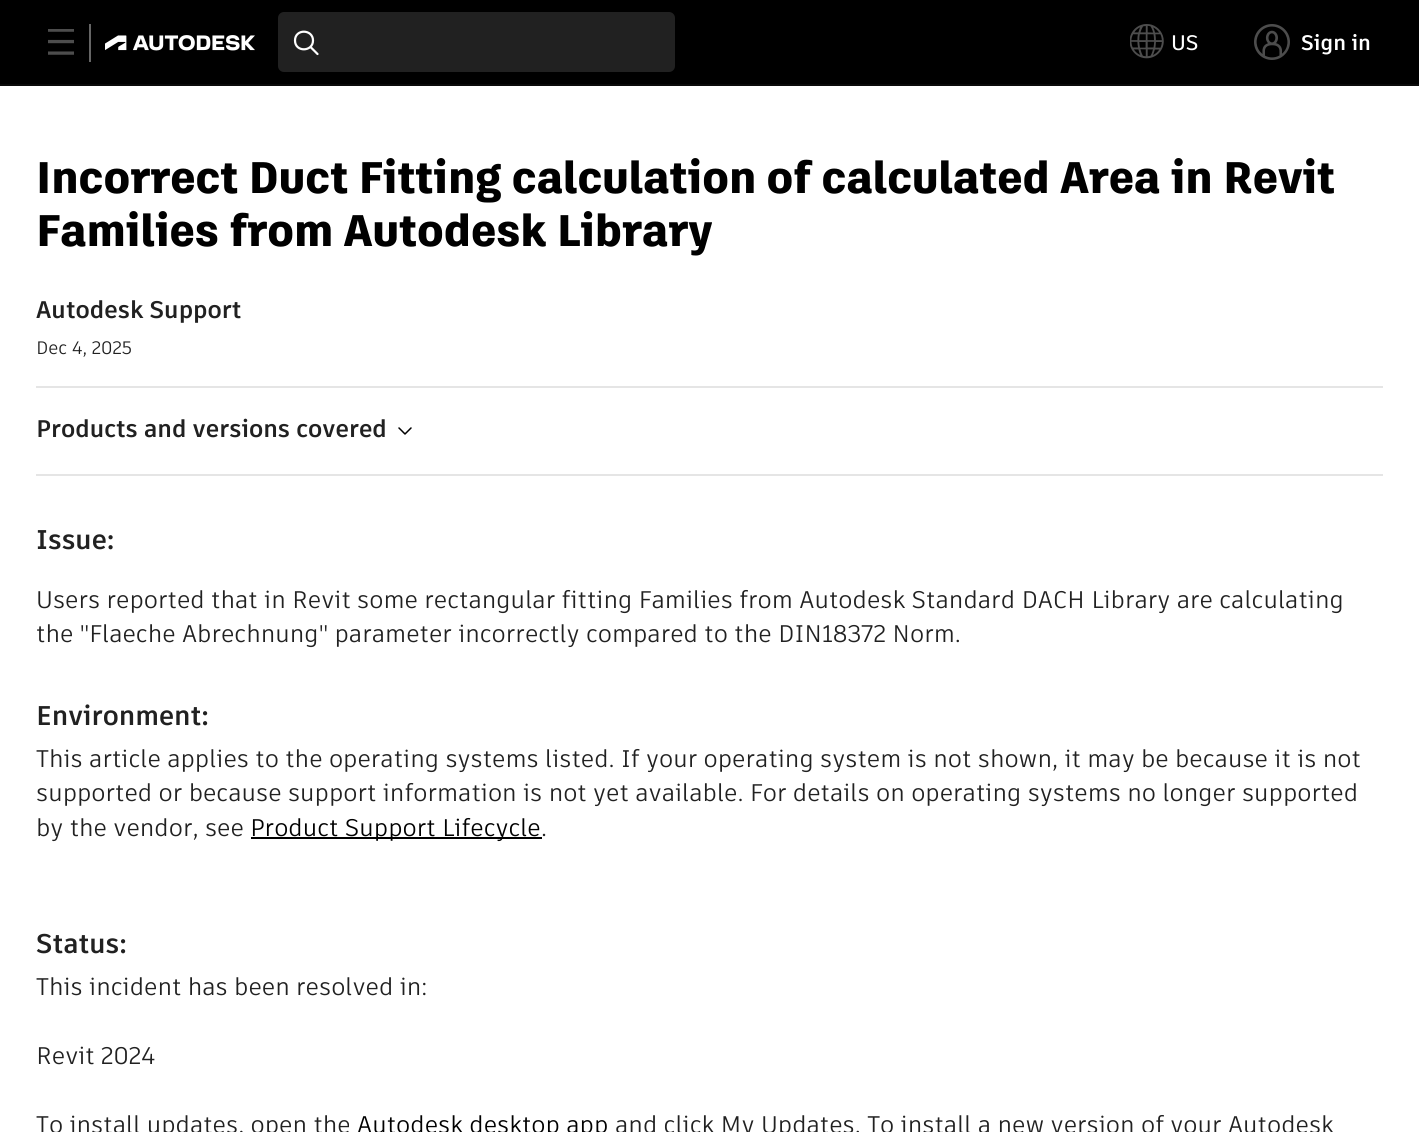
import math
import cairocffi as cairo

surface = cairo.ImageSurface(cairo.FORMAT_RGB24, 1419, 1132)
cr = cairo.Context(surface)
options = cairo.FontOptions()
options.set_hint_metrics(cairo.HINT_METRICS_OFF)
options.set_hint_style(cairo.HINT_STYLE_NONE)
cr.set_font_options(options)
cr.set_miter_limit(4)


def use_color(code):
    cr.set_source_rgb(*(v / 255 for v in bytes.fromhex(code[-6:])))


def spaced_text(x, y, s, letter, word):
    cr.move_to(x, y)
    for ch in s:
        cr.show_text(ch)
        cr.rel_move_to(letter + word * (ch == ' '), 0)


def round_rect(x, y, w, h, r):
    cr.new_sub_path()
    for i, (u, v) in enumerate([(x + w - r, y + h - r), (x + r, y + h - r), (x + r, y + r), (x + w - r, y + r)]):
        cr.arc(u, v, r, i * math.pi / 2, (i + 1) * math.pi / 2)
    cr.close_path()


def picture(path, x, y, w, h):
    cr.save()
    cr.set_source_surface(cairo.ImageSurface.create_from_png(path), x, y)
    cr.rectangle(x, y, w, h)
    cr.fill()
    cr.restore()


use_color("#ffffff")
cr.paint()
use_color("#000000")
cr.rectangle(0, 0, 1419, 84)
cr.fill()
use_color("#0a0a0a")
cr.rectangle(0, 84, 1419, 2)
cr.fill()
picture("img1.png", 48, 29, 26, 26)
use_color("#666666")
cr.rectangle(89, 24, 2, 38)
cr.fill()
picture("img2.png", 105, 35, 150, 16)
use_color("#212121")
round_rect(278, 12, 397, 60, 6)
cr.fill()
cr.new_path()
cr.move_to(310.5, 47)
cr.line_to(317.5, 54)
cr.move_to(313, 40.5)
cr.curve_to(313, 52, 295, 52.5, 295, 40.5)
cr.curve_to(295, 28.5, 313, 29, 313, 40.5)
cr.close_path()
use_color("#ffffff")
cr.set_line_width(2.2)
cr.set_line_cap(cairo.LINE_CAP_ROUND)
cr.stroke()
picture("img3.png", 1130, 24, 34, 35)
cr.select_font_face("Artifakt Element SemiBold")
cr.set_font_size(21)
cr.move_to(1171, 50)
cr.show_text("US")
picture("img4.png", 1254, 24, 36, 36)
cr.select_font_face("Artifakt Element", cairo.FONT_SLANT_NORMAL, cairo.FONT_WEIGHT_BOLD)
cr.move_to(1301, 50)
cr.show_text("Sign in")
cr.select_font_face("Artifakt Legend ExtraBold")
cr.set_font_size(44.1)
use_color("#000000")
spaced_text(36, 193, "Incorrect Duct Fitting calculation of calculated Area in Revit", 0, -0.25)
cr.move_to(36, 246)
cr.show_text("Families from Autodesk Library")
cr.select_font_face("Artifakt Element", cairo.FONT_SLANT_NORMAL, cairo.FONT_WEIGHT_BOLD)
cr.set_font_size(24)
use_color("#212121")
cr.move_to(36, 318)
cr.show_text("Autodesk Support")
cr.select_font_face("Artifakt Element")
cr.set_font_size(18)
cr.move_to(36, 354)
cr.show_text("Dec 4, 2025")
use_color("#e5e5e5")
cr.rectangle(36, 386, 1347, 2)
cr.fill()
cr.select_font_face("Artifakt Element", cairo.FONT_SLANT_NORMAL, cairo.FONT_WEIGHT_BOLD)
cr.set_font_size(24)
use_color("#212121")
cr.move_to(36, 437)
cr.show_text("Products and versions covered")
cr.new_path()
cr.move_to(411, 428)
cr.line_to(405, 434)
cr.line_to(399, 428)
use_color("#000000")
cr.set_line_width(1.5)
cr.set_line_join(cairo.LINE_JOIN_ROUND)
cr.stroke()
use_color("#e5e5e5")
cr.rectangle(36, 474, 1347, 2)
cr.fill()
cr.set_font_size(27)
use_color("#212121")
cr.move_to(36, 549)
cr.show_text("Issue:")
cr.select_font_face("Artifakt Element")
cr.set_font_size(24)
cr.move_to(36, 608)
cr.show_text("Users reported that in Revit some rectangular fitting Families from Autodesk Standard DACH Library are calculating")
cr.move_to(36, 642)
cr.show_text("the \"Flaeche Abrechnung\" parameter incorrectly compared to the DIN18372 Norm.")
cr.select_font_face("Artifakt Element", cairo.FONT_SLANT_NORMAL, cairo.FONT_WEIGHT_BOLD)
cr.set_font_size(27)
cr.move_to(36, 725)
cr.show_text("Environment:")
cr.select_font_face("Artifakt Element")
cr.set_font_size(24)
cr.move_to(36, 767)
cr.show_text("This article applies to the operating systems listed. If your operating system is not shown, it may be because it is not")
cr.move_to(36, 801)
cr.show_text("supported or because support information is not yet available. For details on operating systems no longer supported")
cr.move_to(36, 836)
cr.show_text("by the vendor, see")
use_color("#000000")
cr.rectangle(251, 837, 291, 2)
cr.fill()
cr.move_to(250, 836)
cr.show_text("Product Support Lifecycle")
use_color("#212121")
cr.move_to(541, 836)
cr.show_text(".")
cr.select_font_face("Artifakt Element", cairo.FONT_SLANT_NORMAL, cairo.FONT_WEIGHT_BOLD)
cr.set_font_size(27)
cr.move_to(36, 953)
cr.show_text("Status:")
cr.select_font_face("Artifakt Element")
cr.set_font_size(24)
cr.move_to(36, 995)
cr.show_text("This incident has been resolved in:")
cr.move_to(36, 1064)
cr.show_text("Revit 2024")
cr.move_to(36, 1133)
cr.show_text("To install updates, open the")
use_color("#000000")
cr.move_to(357, 1133)
cr.show_text("Autodesk desktop app")
use_color("#212121")
cr.move_to(615, 1133)
cr.show_text("and click My Updates. To install a new version of your Autodesk")
surface.write_to_png("result.png")
